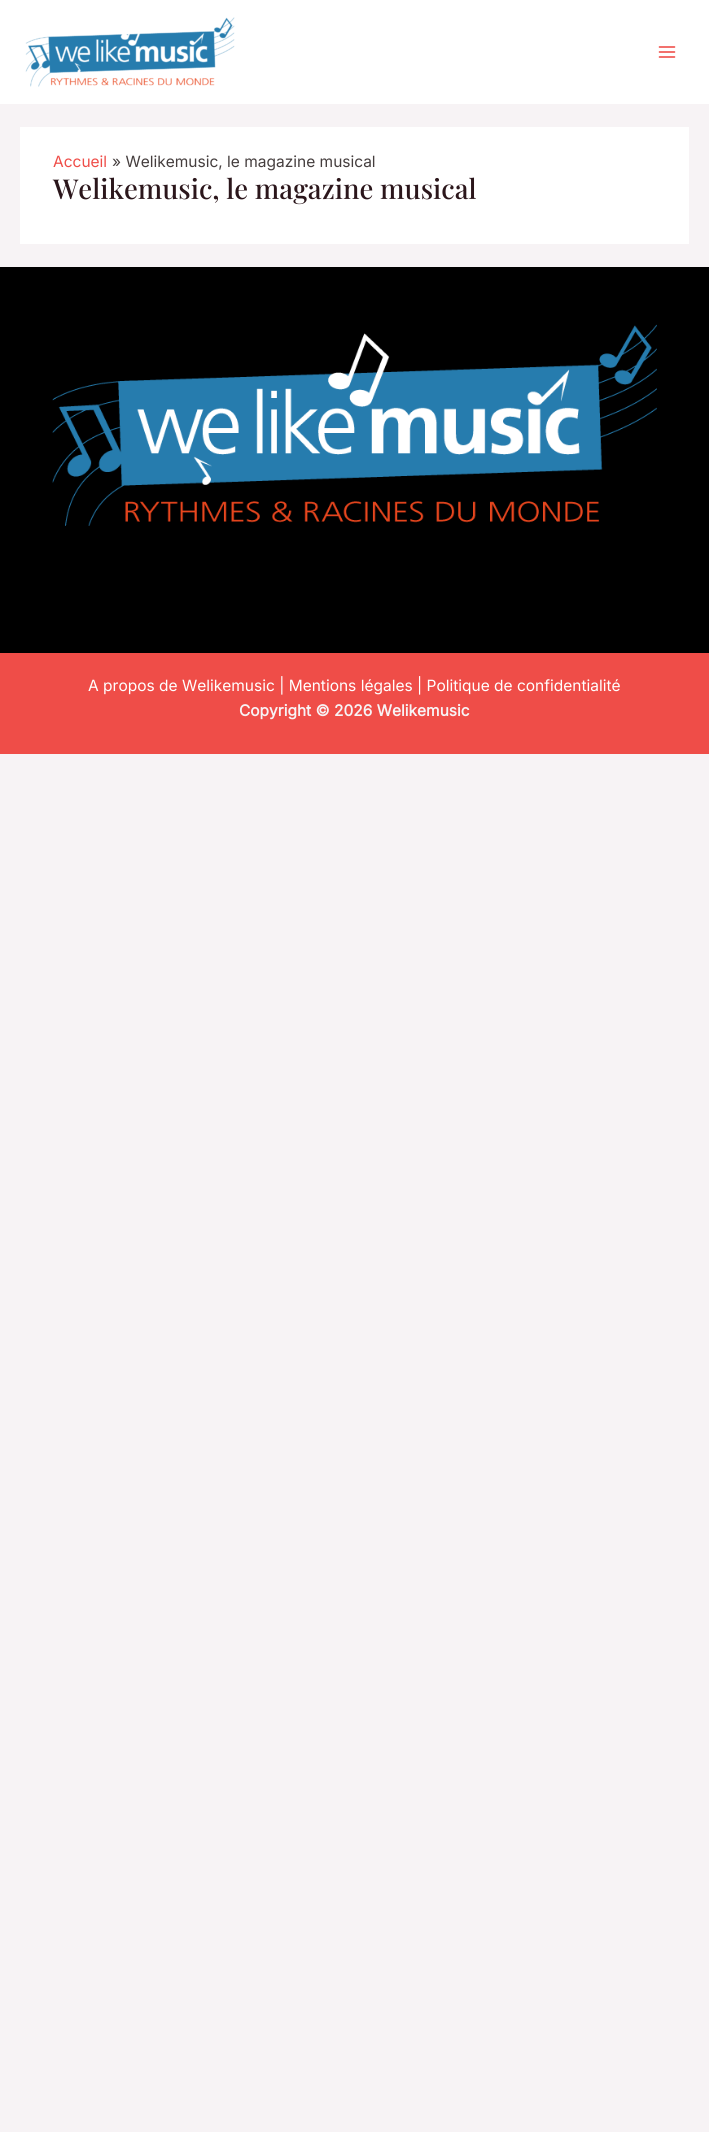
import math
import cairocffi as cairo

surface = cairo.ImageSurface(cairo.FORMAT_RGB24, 709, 2132)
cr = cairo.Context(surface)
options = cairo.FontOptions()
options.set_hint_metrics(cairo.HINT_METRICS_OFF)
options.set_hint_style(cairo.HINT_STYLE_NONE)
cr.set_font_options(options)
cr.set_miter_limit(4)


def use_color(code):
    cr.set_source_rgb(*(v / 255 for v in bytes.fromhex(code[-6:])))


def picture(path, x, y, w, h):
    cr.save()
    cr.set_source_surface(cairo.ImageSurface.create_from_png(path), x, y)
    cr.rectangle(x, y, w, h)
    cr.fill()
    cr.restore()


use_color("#f7f3f5")
cr.paint()
use_color("#ffffff")
cr.rectangle(0, 0, 709, 104)
cr.fill()
picture("img1.png", 25, 17, 210, 70)
picture("img2.png", 658, 46, 18, 12)
cr.rectangle(20, 127, 669, 117)
cr.fill()
cr.select_font_face("Inter")
cr.set_font_size(15.5)
use_color("#ef4d48")
cr.move_to(53, 167)
cr.show_text("Accueil")
use_color("#453e3e")
cr.move_to(112, 167)
cr.show_text("» Welikemusic, le magazine musical")
cr.select_font_face("Playfair Display Medium")
cr.set_font_size(27.4)
use_color("#2b161b")
cr.move_to(53, 199)
cr.show_text("Welikemusic, le magazine musical")
use_color("#000000")
cr.rectangle(0, 267, 709, 386)
cr.fill()
picture("img3.png", 52, 324, 605, 202)
use_color("#ef4d48")
cr.rectangle(0, 653, 709, 101)
cr.fill()
cr.select_font_face("Inter")
cr.set_font_size(15.5)
use_color("#ffffff")
cr.move_to(88, 691)
cr.show_text("A propos de Welikemusic | Mentions légales | Politique de confidentialité")
cr.select_font_face("Inter", cairo.FONT_SLANT_NORMAL, cairo.FONT_WEIGHT_BOLD)
use_color("#f7f3f5")
cr.move_to(239, 716)
cr.show_text("Copyright © 2026 Welikemusic")
surface.write_to_png("result.png")
